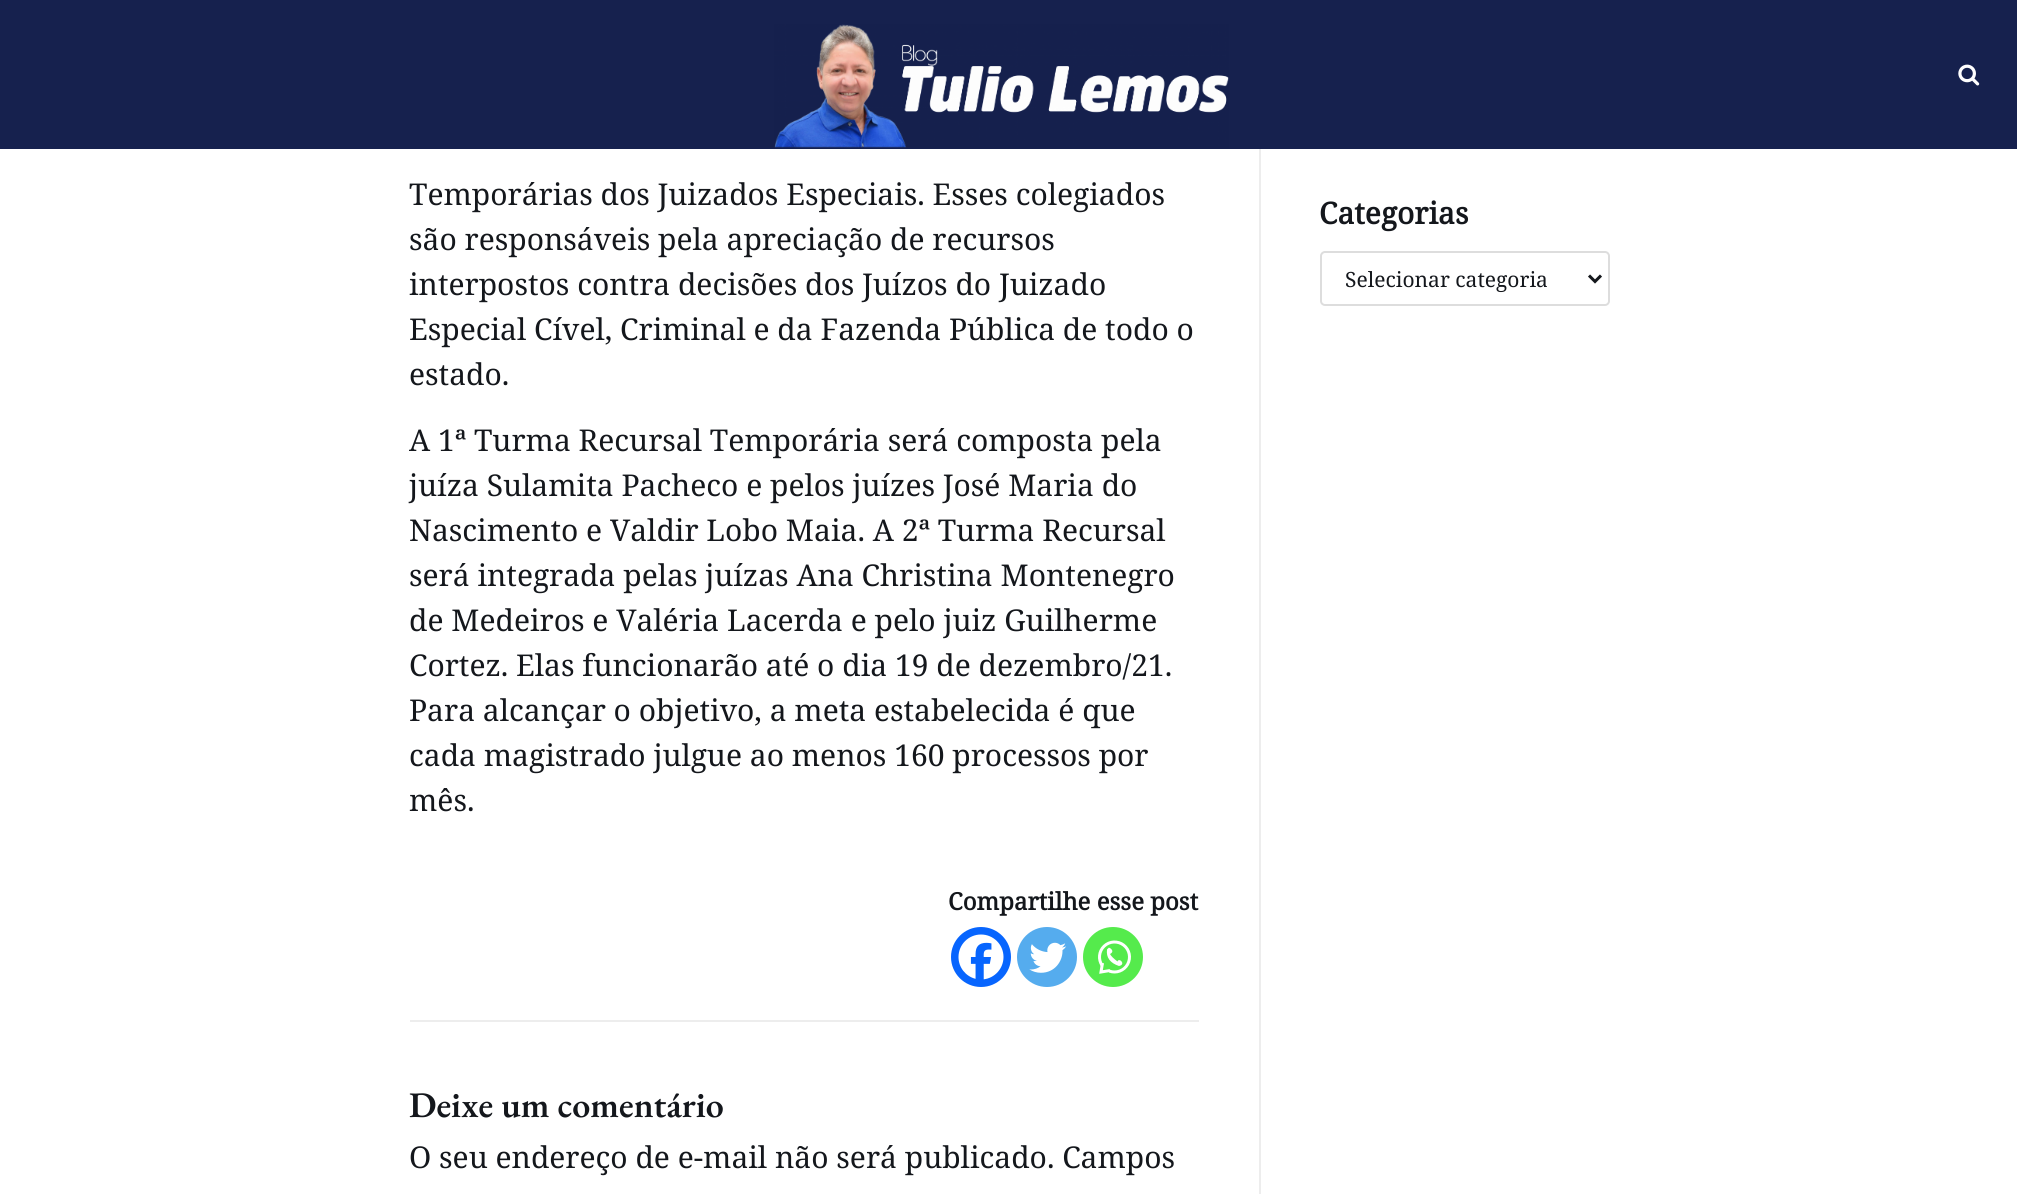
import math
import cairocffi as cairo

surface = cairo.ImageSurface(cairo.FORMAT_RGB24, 2017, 1194)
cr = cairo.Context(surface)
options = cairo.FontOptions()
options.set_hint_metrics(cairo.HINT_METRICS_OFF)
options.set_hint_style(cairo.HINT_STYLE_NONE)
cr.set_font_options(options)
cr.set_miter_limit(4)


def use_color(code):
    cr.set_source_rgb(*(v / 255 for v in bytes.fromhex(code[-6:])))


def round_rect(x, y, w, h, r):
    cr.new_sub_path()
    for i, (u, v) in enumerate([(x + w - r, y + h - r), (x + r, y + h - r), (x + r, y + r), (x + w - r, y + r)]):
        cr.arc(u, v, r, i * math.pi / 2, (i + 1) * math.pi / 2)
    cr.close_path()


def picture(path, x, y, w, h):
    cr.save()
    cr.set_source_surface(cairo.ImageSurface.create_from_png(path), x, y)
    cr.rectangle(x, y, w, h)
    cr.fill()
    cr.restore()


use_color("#ffffff")
cr.paint()
use_color("#16214e")
cr.rectangle(0, 0, 2017, 149)
cr.fill()
picture("img1.png", 774, 24, 455, 124)
picture("img2.png", 1958, 64, 22, 22)
cr.select_font_face("Noto Serif")
cr.set_font_size(30)
use_color("#14171c")
cr.move_to(409, 205)
cr.show_text("Temporárias dos Juizados Especiais. Esses colegiados")
cr.move_to(409, 250)
cr.show_text("são responsáveis pela apreciação de recursos")
cr.move_to(409, 295)
cr.show_text("interpostos contra decisões dos Juízos do Juizado")
cr.move_to(409, 340)
cr.show_text("Especial Cível, Criminal e da Fazenda Pública de todo o")
cr.move_to(409, 385)
cr.show_text("estado.")
cr.move_to(409, 451)
cr.show_text("A 1ª Turma Recursal Temporária será composta pela")
cr.move_to(409, 496)
cr.show_text("juíza Sulamita Pacheco e pelos juízes José Maria do")
cr.move_to(409, 541)
cr.show_text("Nascimento e Valdir Lobo Maia. A 2ª Turma Recursal")
cr.move_to(409, 586)
cr.show_text("será integrada pelas juízas Ana Christina Montenegro")
cr.move_to(409, 631)
cr.show_text("de Medeiros e Valéria Lacerda e pelo juiz Guilherme")
cr.move_to(409, 676)
cr.show_text("Cortez. Elas funcionarão até o dia 19 de dezembro/21.")
cr.move_to(409, 721)
cr.show_text("Para alcançar o objetivo, a meta estabelecida é que")
cr.move_to(409, 766)
cr.show_text("cada magistrado julgue ao menos 160 processos por")
cr.move_to(409, 811)
cr.show_text("mês.")
cr.select_font_face("Noto Serif", cairo.FONT_SLANT_NORMAL, cairo.FONT_WEIGHT_BOLD)
cr.set_font_size(24)
cr.move_to(948, 910)
cr.show_text("Compartilhe esse post")
use_color("#0765fe")
cr.new_path()
cr.arc(981, 957, 30, 0, 2 * math.pi)
cr.fill()
picture("img3.png", 958, 934, 46, 46)
use_color("#55acee")
cr.arc(1047, 957, 30, 0, 2 * math.pi)
cr.fill()
picture("img4.png", 1029, 942, 38, 31)
use_color("#55eb4c")
cr.arc(1113, 957, 30, 0, 2 * math.pi)
cr.fill()
picture("img5.png", 1098, 940, 33, 34)
use_color("#ededed")
cr.rectangle(410, 1020, 789, 2)
cr.fill()
cr.select_font_face("EB Garamond SemiBold")
cr.set_font_size(36)
use_color("#14171c")
cr.move_to(409, 1117)
cr.show_text("Deixe um comentário")
cr.select_font_face("Noto Serif")
cr.set_font_size(30)
cr.move_to(409, 1168)
cr.show_text("O seu endereço de e-mail não será publicado. Campos")
use_color("#ededed")
cr.rectangle(1259, 149, 2, 1045)
cr.fill()
cr.select_font_face("Noto Serif", cairo.FONT_SLANT_NORMAL, cairo.FONT_WEIGHT_BOLD)
use_color("#14171c")
cr.move_to(1319, 224)
cr.show_text("Categorias")
round_rect(1321, 252, 288, 53, 4)
use_color("#dddddd")
cr.stroke()
cr.new_path()
cr.move_to(1589, 275.5)
cr.line_to(1595, 281.5)
cr.line_to(1601, 275.5)
use_color("#14171c")
cr.set_line_width(3)
cr.stroke()
cr.select_font_face("Noto Serif")
cr.set_font_size(21)
cr.move_to(1345, 287)
cr.show_text("Selecionar categoria")
surface.write_to_png("result.png")
